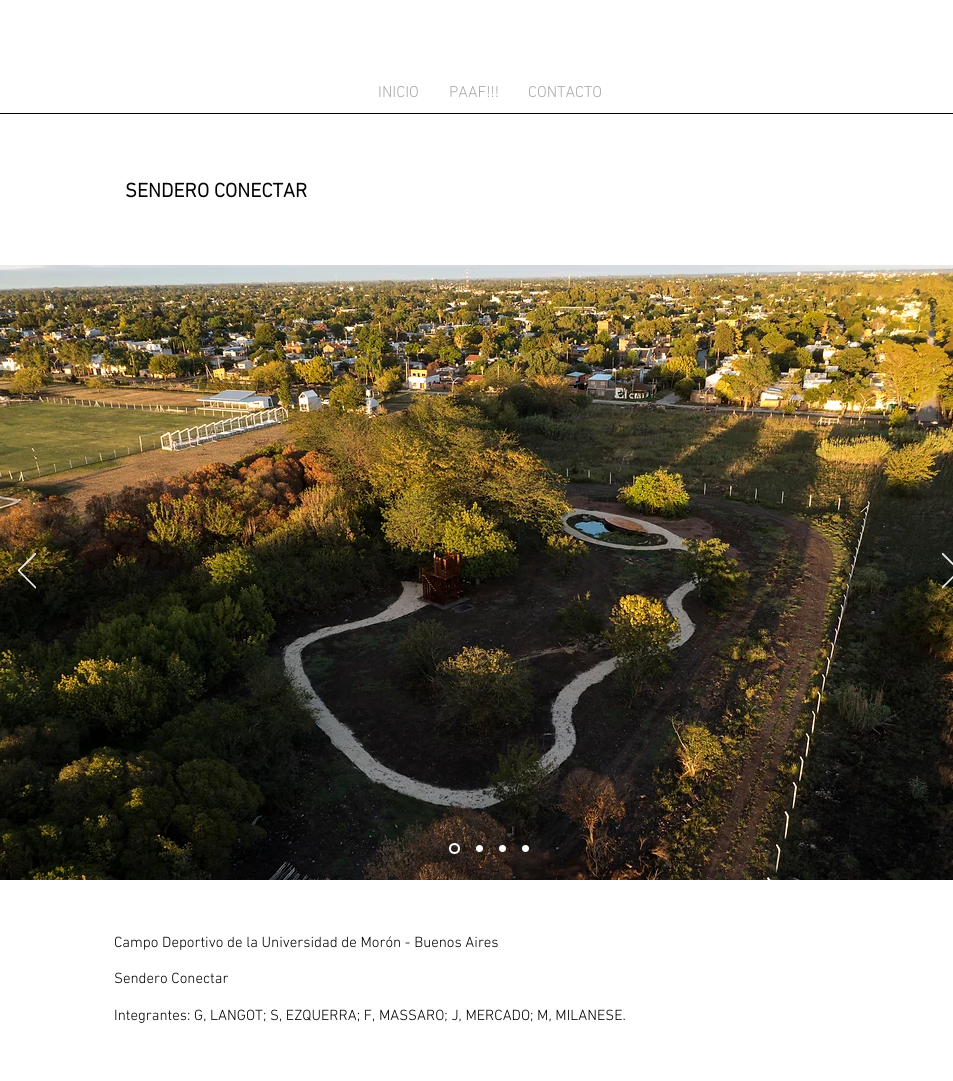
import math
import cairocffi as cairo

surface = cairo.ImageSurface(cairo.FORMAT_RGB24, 953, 1081)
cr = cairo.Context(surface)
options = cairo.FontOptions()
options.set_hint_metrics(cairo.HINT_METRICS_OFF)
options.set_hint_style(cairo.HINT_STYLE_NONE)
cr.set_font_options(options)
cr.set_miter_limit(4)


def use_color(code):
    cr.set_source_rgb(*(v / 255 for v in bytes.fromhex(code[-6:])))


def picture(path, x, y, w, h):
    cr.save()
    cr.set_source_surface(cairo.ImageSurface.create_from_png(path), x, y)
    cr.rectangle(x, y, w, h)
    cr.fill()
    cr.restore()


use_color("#ffffff")
cr.paint()
cr.select_font_face("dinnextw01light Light")
cr.set_font_size(16)
use_color("#aaa8a8")
cr.move_to(378, 97)
cr.show_text("INICIO")
cr.move_to(449, 97)
cr.show_text("PAAF!!!")
cr.move_to(528, 97)
cr.show_text("CONTACTO")
use_color("#000000")
cr.rectangle(0, 113, 953, 1)
cr.fill()
cr.select_font_face("dinnextw01light", cairo.FONT_SLANT_NORMAL, cairo.FONT_WEIGHT_BOLD)
cr.set_font_size(20)
cr.move_to(125, 197)
cr.show_text("SENDERO CONECTAR")
picture("img1.png", 0, 265, 953, 615)
cr.save()
cr.rectangle(18, 553, 18, 36)
cr.clip()
cr.new_path()
cr.move_to(35.5, 588)
cr.line_to(18, 570.5)
cr.line_to(35.5, 553)
cr.line_to(36, 554)
cr.line_to(19, 570.5)
cr.line_to(36, 587.5)
cr.close_path()
use_color("#f3f3f3")
cr.set_line_width(0.9)
cr.stroke()
cr.restore()
cr.save()
cr.rectangle(942, 553, 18, 36)
cr.clip()
cr.new_path()
cr.move_to(942.5, 588)
cr.line_to(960, 570.5)
cr.line_to(942.5, 553)
cr.line_to(942, 554)
cr.line_to(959, 570.5)
cr.line_to(942, 587.5)
cr.close_path()
use_color("#f3f3f3")
cr.set_line_width(0.9)
cr.stroke()
cr.restore()
cr.arc(454.5, 848.5, 4.5, 0, 2 * math.pi)
use_color("#ffffff")
cr.stroke()
cr.arc(479.5, 848.5, 3.5, 0, 2 * math.pi)
cr.fill()
cr.arc(502.5, 848.5, 3.5, 0, 2 * math.pi)
cr.fill()
cr.arc(525.5, 848.5, 3.5, 0, 2 * math.pi)
cr.fill()
cr.select_font_face("dinnextw01light Light")
cr.set_font_size(15)
use_color("#000000")
cr.move_to(114, 947)
cr.show_text("Campo Deportivo de la Universidad de Morón - Buenos Aires")
cr.move_to(114, 983)
cr.show_text("Sendero Conectar")
cr.move_to(114, 1020)
cr.show_text("Integrantes: G, LANGOT; S, EZQUERRA; F, MASSARO; J, MERCADO; M, MILANESE.")
surface.write_to_png("result.png")
